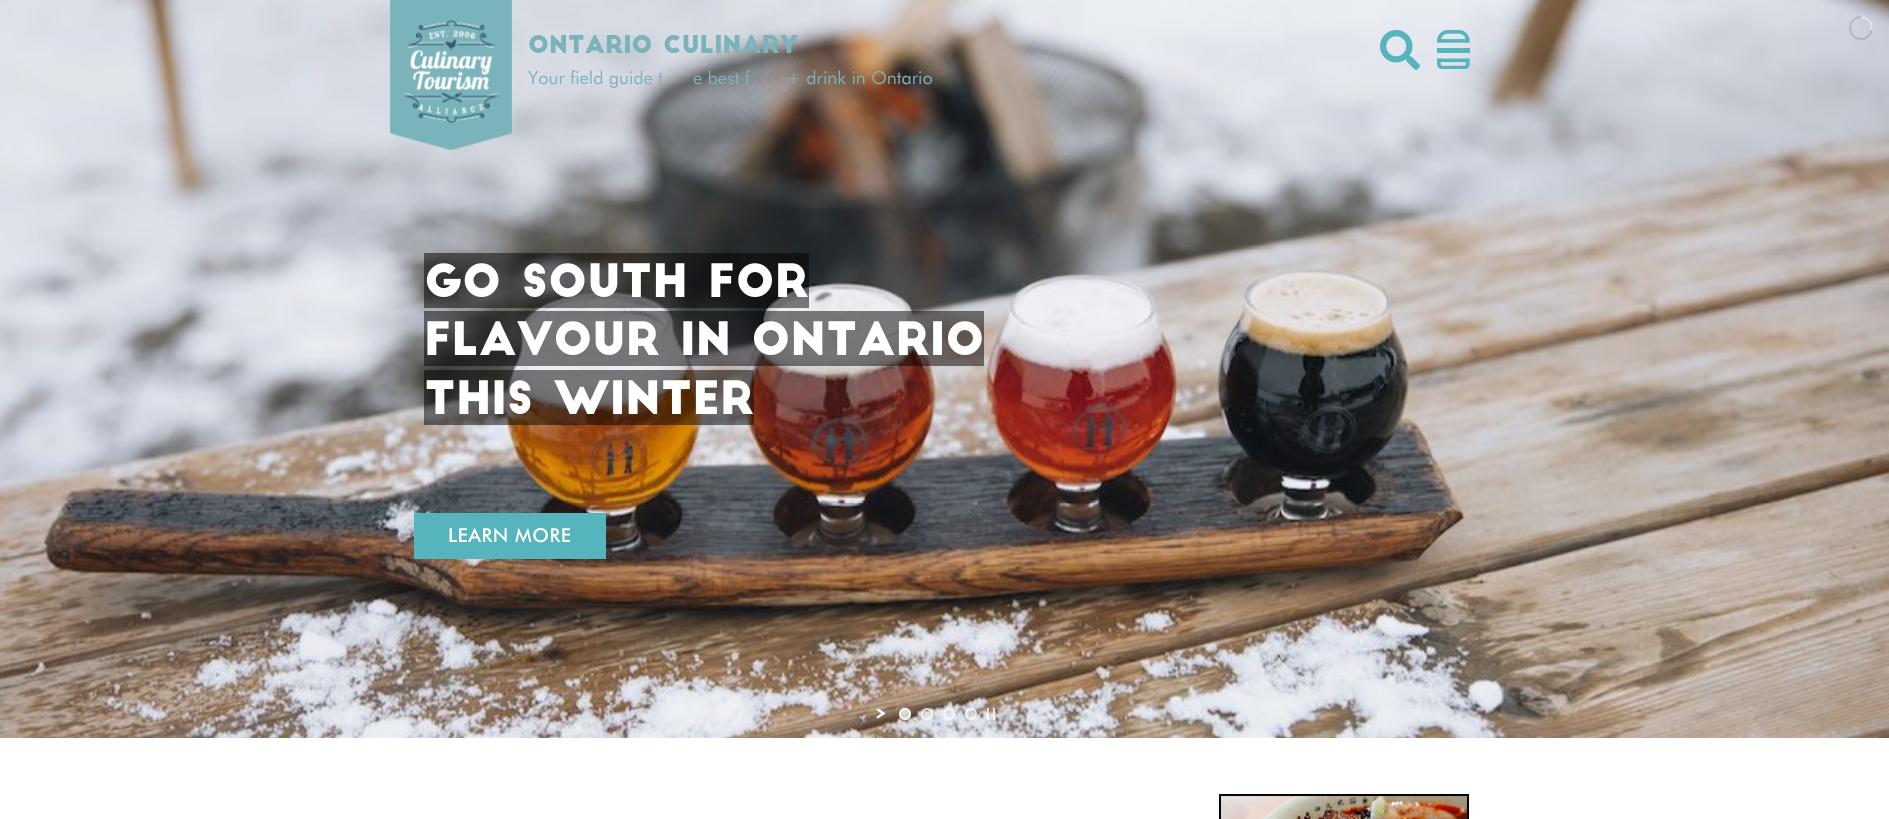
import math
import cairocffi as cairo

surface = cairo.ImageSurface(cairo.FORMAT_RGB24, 1889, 819)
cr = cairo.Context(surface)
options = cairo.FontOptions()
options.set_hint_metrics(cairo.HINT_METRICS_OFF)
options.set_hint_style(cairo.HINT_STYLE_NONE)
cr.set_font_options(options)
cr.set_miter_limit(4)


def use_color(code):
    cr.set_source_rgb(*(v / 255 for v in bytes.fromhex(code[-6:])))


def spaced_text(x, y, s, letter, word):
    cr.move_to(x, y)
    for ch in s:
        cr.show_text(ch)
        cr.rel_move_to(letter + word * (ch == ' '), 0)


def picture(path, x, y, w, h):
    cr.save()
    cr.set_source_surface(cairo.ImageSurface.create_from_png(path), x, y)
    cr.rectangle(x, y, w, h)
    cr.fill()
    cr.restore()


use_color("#ffffff")
cr.paint()
picture("img5.png", 0, 0, 1889, 738)
picture("img1.png", 389, 0, 123, 150)
cr.select_font_face("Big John")
cr.set_font_size(24)
use_color("#7ab3ba")
cr.move_to(528, 53)
cr.show_text("ONTARIO CULINARY")
cr.select_font_face("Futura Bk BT")
cr.set_font_size(18)
cr.move_to(528, 84)
cr.show_text("Your field guide t")
cr.move_to(693, 84)
cr.show_text("e best f")
cr.move_to(786, 84)
cr.show_text("+ drink in Ontario")
picture("img2.png", 1380, 30, 40, 40)
picture("img3.png", 1437, 30, 33, 13)
use_color("#56b4bc")
cr.rectangle(1437, 48, 33, 5)
cr.fill()
picture("img4.png", 1437, 58, 33, 11)
cr.arc(1861, 28, 11, 0, 2 * math.pi)
cr.set_source_rgba(0, 0, 0, 0.13)
cr.stroke()
cr.save()
cr.rectangle(1861, 16, 12, 24)
cr.clip()
cr.new_path()
cr.move_to(1875.5, 19)
cr.line_to(1872.5, 30.5)
cr.line_to(1849.5, 25.5)
cr.line_to(1852, 13.5)
cr.close_path()
cr.clip()
cr.new_path()
cr.move_to(1871.5, 30.5)
cr.curve_to(1868.5, 44.5, 1847, 39.5, 1850.5, 25.5)
cr.curve_to(1853.5, 11.5, 1875, 16.5, 1871.5, 30.5)
cr.close_path()
cr.set_source_rgba(1, 1, 1, 0.65)
cr.stroke()
cr.restore()
cr.set_source_rgba(0, 0, 0, 0.5)
cr.rectangle(424, 253, 385, 55)
cr.fill()
cr.select_font_face("Big John")
cr.set_font_size(45)
use_color("#ffffff")
cr.move_to(424, 297)
cr.show_text("GO SOUTH FOR")
cr.set_source_rgba(0, 0, 0, 0.5)
cr.rectangle(424, 311, 560, 55)
cr.fill()
use_color("#ffffff")
cr.move_to(424, 355)
cr.show_text("FLAVOUR IN ONTARIO")
cr.set_source_rgba(0, 0, 0, 0.5)
cr.rectangle(424, 370, 330, 55)
cr.fill()
use_color("#ffffff")
cr.move_to(424, 414)
cr.show_text("THIS WINTER")
use_color("#56b4bc")
cr.rectangle(414, 513, 192, 46)
cr.fill()
cr.select_font_face("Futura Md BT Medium")
cr.set_font_size(19.25)
use_color("#ffffff")
spaced_text(448, 542, "LEARN MORE", 0.5, 0)
cr.new_path()
cr.move_to(878.5, 708.5)
cr.line_to(885.5, 713.5)
cr.line_to(883.5, 715)
cr.line_to(876, 710)
cr.close_path()
cr.fill()
cr.new_path()
cr.move_to(883.5, 712)
cr.line_to(885.5, 713.5)
cr.line_to(878, 718.5)
cr.line_to(876, 717)
cr.close_path()
cr.fill()
cr.set_source_rgba(1, 1, 1, 0.75)
cr.arc(905, 714, 6, 0, 2 * math.pi)
cr.fill()
cr.arc(905, 714, 5, 0, 2 * math.pi)
cr.stroke()
cr.arc(927, 714, 5, 0, 2 * math.pi)
cr.stroke()
cr.arc(949, 714, 5, 0, 2 * math.pi)
cr.stroke()
cr.arc(971, 714, 5, 0, 2 * math.pi)
cr.stroke()
cr.rectangle(993, 708, 2, 12)
cr.fill()
cr.rectangle(987, 708, 2, 12)
cr.fill()
picture("img6.png", 1219, 794, 250, 25)
surface.write_to_png("result.png")
